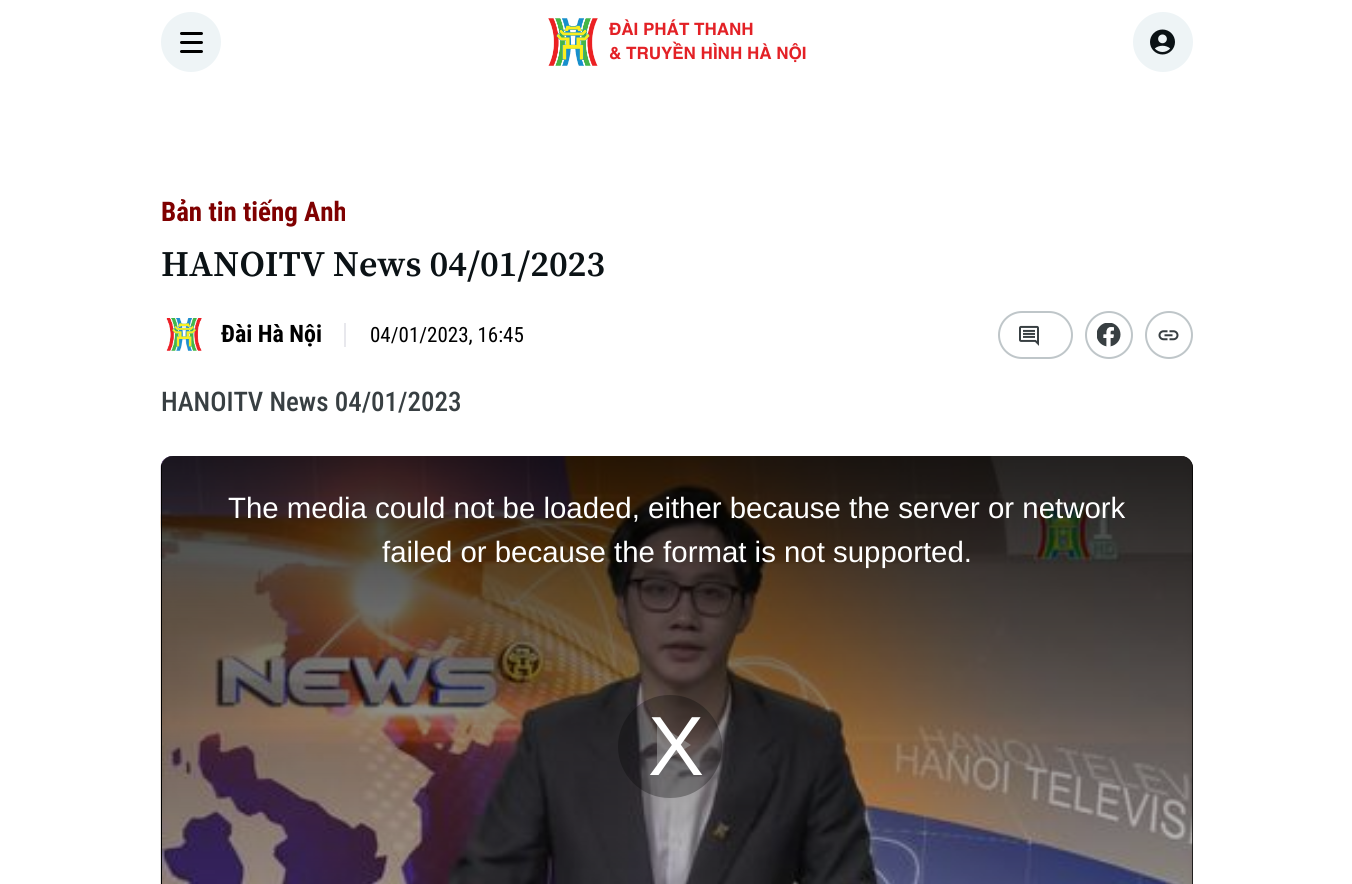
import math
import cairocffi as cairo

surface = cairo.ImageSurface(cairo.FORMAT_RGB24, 1352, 884)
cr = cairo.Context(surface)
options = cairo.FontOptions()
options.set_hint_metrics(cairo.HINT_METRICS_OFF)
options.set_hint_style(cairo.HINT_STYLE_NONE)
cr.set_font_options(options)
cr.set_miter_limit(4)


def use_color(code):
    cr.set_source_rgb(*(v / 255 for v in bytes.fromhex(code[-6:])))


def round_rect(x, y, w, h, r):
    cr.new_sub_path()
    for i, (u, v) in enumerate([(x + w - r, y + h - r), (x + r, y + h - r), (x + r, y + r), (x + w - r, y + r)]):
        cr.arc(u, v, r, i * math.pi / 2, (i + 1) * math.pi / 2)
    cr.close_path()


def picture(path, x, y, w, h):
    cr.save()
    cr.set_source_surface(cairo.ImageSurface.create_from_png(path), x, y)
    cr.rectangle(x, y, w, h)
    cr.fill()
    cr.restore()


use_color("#ffffff")
cr.paint()
use_color("#eef4f6")
cr.arc(191, 42, 30, 0, 2 * math.pi)
cr.fill()
use_color("#000000")
round_rect(180, 32, 23, 3, 1.5)
cr.fill()
round_rect(180, 41, 23, 3, 1.5)
cr.fill()
round_rect(180, 50, 23, 3, 1.5)
cr.fill()
picture("img1.png", 548, 18, 50, 48)
cr.select_font_face("Helvetica", cairo.FONT_SLANT_NORMAL, cairo.FONT_WEIGHT_BOLD)
cr.set_font_size(17)
use_color("#e32126")
cr.move_to(609, 35)
cr.show_text("ĐÀI PHÁT THANH")
cr.move_to(609, 59)
cr.show_text("& TRUYỀN HÌNH HÀ NỘI")
use_color("#eef4f6")
cr.new_path()
cr.arc(1163, 42, 30, 0, 2 * math.pi)
cr.fill()
picture("img2.png", 1150, 29, 25, 26)
cr.select_font_face("Roboto Condensed", cairo.FONT_SLANT_NORMAL, cairo.FONT_WEIGHT_BOLD)
cr.set_font_size(27)
use_color("#7f0000")
cr.move_to(161, 221)
cr.show_text("Bản tin tiếng Anh")
cr.select_font_face("Source Serif Pro SemiBold")
cr.set_font_size(36)
use_color("#0b1215")
cr.move_to(161, 276)
cr.show_text("HANOITV News 04/01/2023")
picture("img3.png", 166, 318, 36, 33)
cr.select_font_face("Roboto Condensed", cairo.FONT_SLANT_NORMAL, cairo.FONT_WEIGHT_BOLD)
cr.set_font_size(24)
use_color("#000000")
cr.move_to(221, 342)
cr.show_text("Đài Hà Nội")
use_color("#e8e8ed")
cr.rectangle(344, 323, 2, 24)
cr.fill()
cr.select_font_face("Roboto Condensed")
cr.set_font_size(21)
use_color("#000000")
cr.move_to(370, 342)
cr.show_text("04/01/2023, 16:45")
round_rect(999, 312, 73, 46, 23)
use_color("#bfc6c9")
cr.stroke()
picture("img4.png", 1019, 325, 20, 21)
cr.arc(1109, 335, 23, 0, 2 * math.pi)
cr.stroke()
picture("img5.png", 1097, 323, 24, 24)
cr.arc(1169, 335, 23, 0, 2 * math.pi)
cr.stroke()
picture("img6.png", 1158, 330, 21, 11)
cr.select_font_face("Roboto Condensed Medium")
cr.set_font_size(27)
use_color("#383f42")
cr.move_to(161, 411)
cr.show_text("HANOITV News 04/01/2023")
picture("img7.png", 160, 456, 1033, 428)
use_color("#000000")
round_rect(161, 456, 1032, 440, 12)
cr.fill()
picture("img8.png", 162, 456, 1031, 428)
cr.set_source_rgba(0, 0, 0, 0.3)
round_rect(618, 695, 104, 103, 51.5)
cr.fill()
cr.set_source_rgba(1, 1, 1, 0.6)
cr.new_path()
cr.move_to(657, 723)
cr.line_to(657, 766)
cr.line_to(691, 745)
cr.close_path()
cr.fill()
gradient = cairo.LinearGradient(677, 456, 677, 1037)
gradient.add_color_stop_rgba(0, 0, 0, 0, 0.8)
gradient.add_color_stop_rgba(1, 0, 0, 0, 0)
cr.set_source(gradient)
round_rect(161, 456, 1032, 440, 12)
cr.fill()
cr.select_font_face("Liberation Sans")
cr.set_font_size(29.4)
use_color("#ffffff")
cr.move_to(228, 518)
cr.show_text("The media could not be loaded, either because the server or network")
cr.move_to(382, 562)
cr.show_text("failed or because the format is not supported.")
cr.set_font_size(84)
cr.move_to(648, 775)
cr.show_text("X")
surface.write_to_png("result.png")
